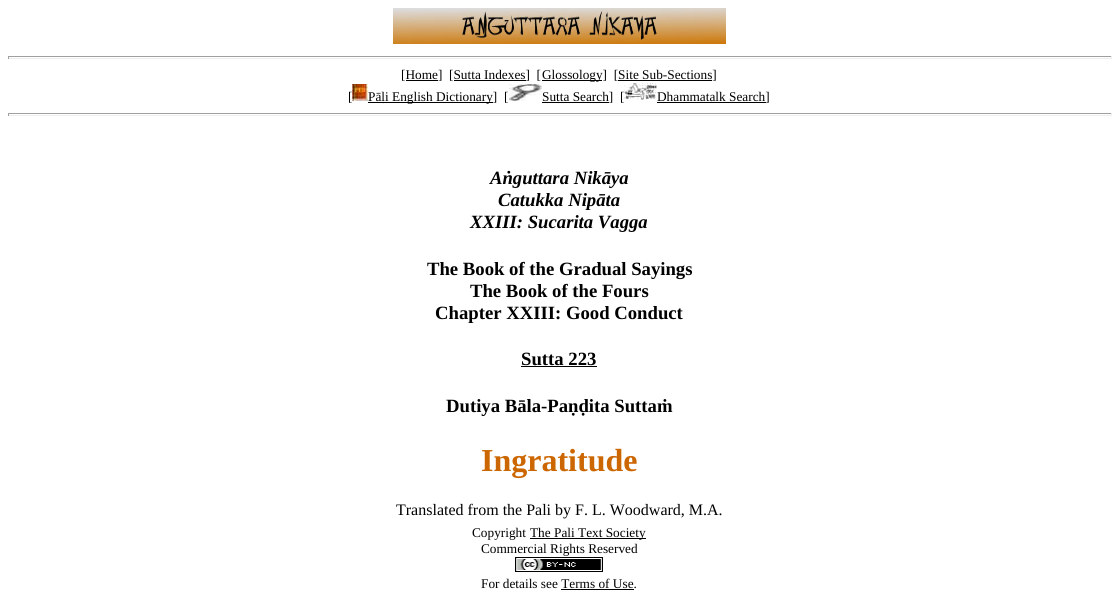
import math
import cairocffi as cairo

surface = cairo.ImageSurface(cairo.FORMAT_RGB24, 1118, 609)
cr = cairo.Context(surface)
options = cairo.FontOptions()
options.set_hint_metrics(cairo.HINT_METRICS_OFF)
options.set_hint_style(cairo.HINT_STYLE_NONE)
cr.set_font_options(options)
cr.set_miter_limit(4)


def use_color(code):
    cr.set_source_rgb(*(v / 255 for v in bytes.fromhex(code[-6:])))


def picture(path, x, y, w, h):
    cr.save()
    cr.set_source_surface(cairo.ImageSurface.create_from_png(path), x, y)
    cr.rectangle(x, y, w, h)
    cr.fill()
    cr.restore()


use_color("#ffffff")
cr.paint()
picture("img1.png", 393, 8, 333, 36)
use_color("#9f9f9f")
cr.rectangle(8, 56, 1104, 1)
cr.fill()
use_color("#eeeeee")
cr.rectangle(1111, 56, 1, 3)
cr.fill()
cr.rectangle(8, 58, 1104, 1)
cr.fill()
use_color("#9f9f9f")
cr.rectangle(8, 56, 1, 3)
cr.fill()
cr.select_font_face("Liberation Serif")
cr.set_font_size(13.3)
use_color("#000000")
cr.move_to(401, 79)
cr.show_text("[Home]  [Sutta Indexes]  [")
cr.rectangle(542, 80, 60, 1)
cr.fill()
cr.move_to(542, 79)
cr.show_text("Glossology]  [Site Sub-Sections]")
cr.rectangle(406, 80, 32, 1)
cr.fill()
cr.rectangle(454, 80, 72, 1)
cr.fill()
cr.rectangle(618, 80, 94, 1)
cr.fill()
cr.move_to(348, 101)
cr.show_text("[")
picture("img2.png", 352, 84, 16, 17)
cr.rectangle(368, 102, 125, 1)
cr.fill()
cr.move_to(368, 101)
cr.show_text("Pāḷi English Dictionary]  [")
picture("img3.png", 509, 84, 33, 17)
cr.rectangle(542, 102, 67, 1)
cr.fill()
cr.move_to(542, 101)
cr.show_text("Sutta Search]  [")
picture("img4.png", 624, 83, 33, 17)
cr.rectangle(657, 102, 109, 1)
cr.fill()
cr.move_to(657, 101)
cr.show_text("Dhammatalk Search]")
use_color("#9f9f9f")
cr.rectangle(8, 113, 1104, 1)
cr.fill()
use_color("#eeeeee")
cr.rectangle(1111, 113, 1, 3)
cr.fill()
cr.rectangle(8, 115, 1104, 1)
cr.fill()
use_color("#9f9f9f")
cr.rectangle(8, 113, 1, 3)
cr.fill()
cr.select_font_face("Liberation Serif", cairo.FONT_SLANT_ITALIC, cairo.FONT_WEIGHT_BOLD)
cr.set_font_size(18.7)
use_color("#000000")
cr.move_to(490, 184)
cr.show_text("Aṅguttara Nikāya")
cr.move_to(498, 206)
cr.show_text("Catukka Nipāta")
cr.move_to(470, 228)
cr.show_text("XXIII: Sucarita Vagga")
cr.select_font_face("Liberation Serif", cairo.FONT_SLANT_NORMAL, cairo.FONT_WEIGHT_BOLD)
cr.move_to(427, 275)
cr.show_text("The Book of the Gradual Sayings")
cr.move_to(470, 297)
cr.show_text("The Book of the Fours")
cr.move_to(435, 319)
cr.show_text("Chapter XXIII: Good Conduct")
cr.move_to(521, 365)
cr.show_text("Sutta 223")
cr.rectangle(521, 366, 76, 1)
cr.fill()
cr.move_to(446, 412)
cr.show_text("Dutiya Bāla-Paṇḍita Suttaṁ")
cr.set_font_size(32)
use_color("#cc6600")
cr.move_to(481, 471)
cr.show_text("Ingratitude")
cr.select_font_face("Liberation Serif")
cr.set_font_size(16)
use_color("#000000")
cr.move_to(396, 515)
cr.show_text("Translated from the Pali by F. L. Woodward, M.A.")
cr.set_font_size(13.3)
cr.move_to(472, 537)
cr.show_text("Copyright")
cr.rectangle(530, 538, 116, 1)
cr.fill()
cr.move_to(530, 537)
cr.show_text("The Pali Text Society")
cr.move_to(481, 553)
cr.show_text("Commercial Rights Reserved")
picture("img5.png", 515, 557, 88, 15)
cr.move_to(481, 588)
cr.show_text("For details see Terms of Use.")
cr.rectangle(561, 589, 73, 1)
cr.fill()
surface.write_to_png("result.png")
